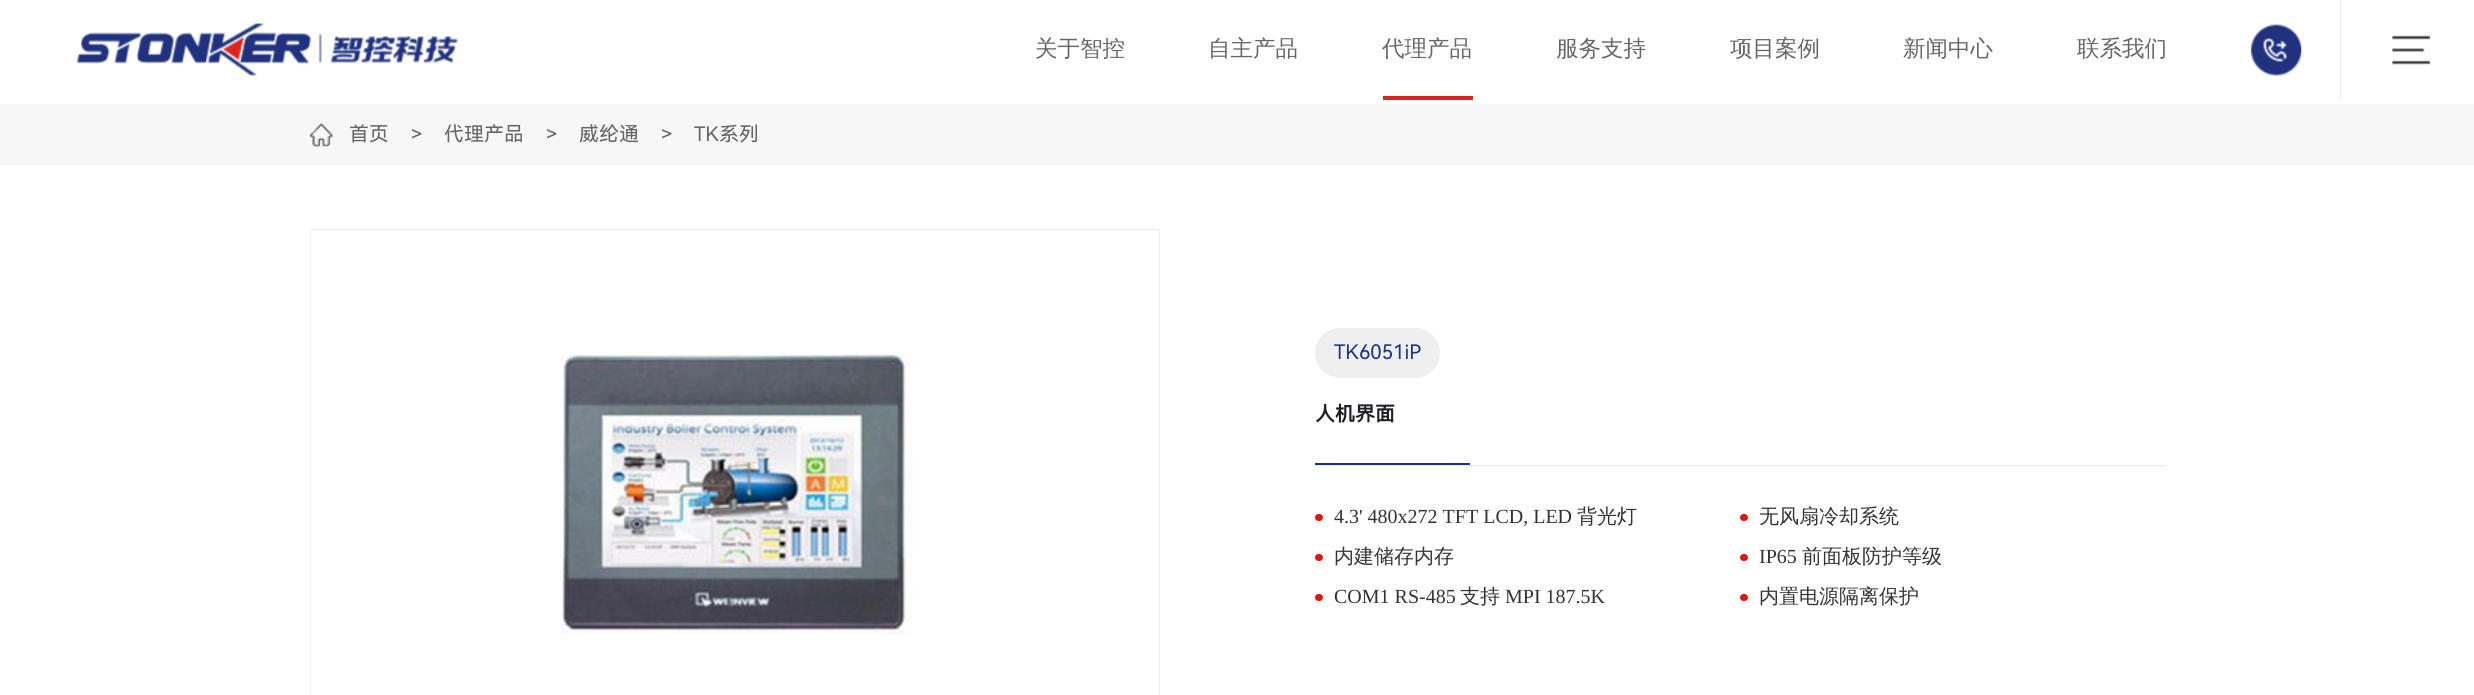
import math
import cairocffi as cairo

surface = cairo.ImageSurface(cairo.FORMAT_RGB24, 2474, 695)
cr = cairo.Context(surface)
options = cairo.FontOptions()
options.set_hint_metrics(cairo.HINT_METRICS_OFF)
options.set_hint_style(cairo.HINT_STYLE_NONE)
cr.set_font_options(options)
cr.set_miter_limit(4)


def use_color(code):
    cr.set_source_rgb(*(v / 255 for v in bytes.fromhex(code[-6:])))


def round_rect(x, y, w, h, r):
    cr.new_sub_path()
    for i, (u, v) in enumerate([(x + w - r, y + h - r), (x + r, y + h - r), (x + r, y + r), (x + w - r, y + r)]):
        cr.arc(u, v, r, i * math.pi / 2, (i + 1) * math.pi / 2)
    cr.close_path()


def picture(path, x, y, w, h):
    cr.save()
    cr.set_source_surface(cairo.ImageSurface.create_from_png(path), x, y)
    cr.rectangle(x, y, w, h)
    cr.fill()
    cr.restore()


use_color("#ffffff")
cr.paint()
picture("img1.png", 77, 23, 382, 53)
cr.select_font_face("WenQuanYi Zen Hei Medium")
cr.set_font_size(22.5)
use_color("#666666")
cr.move_to(1035, 56)
cr.show_text("关于智控")
cr.move_to(1208, 56)
cr.show_text("自主产品")
cr.move_to(1382, 56)
cr.show_text("代理产品")
use_color("#da251d")
cr.rectangle(1383, 96, 90, 4)
cr.fill()
use_color("#666666")
cr.move_to(1556, 56)
cr.show_text("服务支持")
cr.move_to(1730, 56)
cr.show_text("项目案例")
cr.move_to(1903, 56)
cr.show_text("新闻中心")
cr.move_to(2077, 56)
cr.show_text("联系我们")
picture("img2.png", 2251, 24, 51, 52)
use_color("#ebebeb")
cr.rectangle(2340, 0, 1, 99)
cr.fill()
picture("img3.png", 2392, 35, 38, 30)
use_color("#f7f7f7")
cr.rectangle(0, 104, 2474, 61)
cr.fill()
picture("img4.png", 310, 123, 23, 24)
cr.select_font_face("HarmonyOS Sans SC")
cr.set_font_size(20)
use_color("#666666")
cr.move_to(349, 141)
cr.show_text("首页")
cr.move_to(411, 141)
cr.show_text(">")
cr.move_to(444, 141)
cr.show_text("代理产品")
cr.move_to(546, 141)
cr.show_text(">")
cr.move_to(579, 141)
cr.show_text("威纶通")
cr.move_to(661, 141)
cr.show_text(">")
cr.move_to(694, 141)
cr.show_text("TK系列")
use_color("#eeeeee")
cr.rectangle(310, 229, 850, 1)
cr.fill()
cr.rectangle(1159, 229, 1, 466)
cr.fill()
cr.rectangle(310, 229, 1, 466)
cr.fill()
picture("img5.png", 559, 354, 354, 282)
use_color("#efeff0")
round_rect(1315, 328, 125, 50, 25)
cr.fill()
use_color("#1f317f")
cr.move_to(1334, 359)
cr.show_text("TK6051iP")
use_color("#e9e9e9")
cr.rectangle(1315, 465, 851, 1)
cr.fill()
cr.select_font_face("HarmonyOS Sans SC", cairo.FONT_SLANT_NORMAL, cairo.FONT_WEIGHT_BOLD)
use_color("#1e2026")
cr.move_to(1315, 421)
cr.show_text("人机界面")
use_color("#1f317f")
cr.rectangle(1315, 463, 155, 2)
cr.fill()
use_color("#dc160d")
round_rect(1315, 514, 8, 7, 3.5)
cr.fill()
cr.select_font_face("Liberation Serif")
use_color("#333333")
cr.move_to(1334, 523)
cr.show_text("4.3' 480x272 TFT LCD, LED")
cr.select_font_face("WenQuanYi Zen Hei Medium")
cr.move_to(1577, 523)
cr.show_text("背光灯")
use_color("#dc160d")
round_rect(1740, 514, 8, 7, 3.5)
cr.fill()
use_color("#333333")
cr.move_to(1759, 523)
cr.show_text("无风扇冷却系统")
use_color("#dc160d")
round_rect(1315, 554, 8, 7, 3.5)
cr.fill()
use_color("#333333")
cr.move_to(1334, 563)
cr.show_text("内建储存内存")
use_color("#dc160d")
round_rect(1740, 554, 8, 7, 3.5)
cr.fill()
cr.select_font_face("Liberation Serif")
use_color("#333333")
cr.move_to(1759, 563)
cr.show_text("IP65")
cr.select_font_face("WenQuanYi Zen Hei Medium")
cr.move_to(1802, 563)
cr.show_text("前面板防护等级")
use_color("#dc160d")
round_rect(1315, 594, 8, 7, 3.5)
cr.fill()
cr.select_font_face("Liberation Serif")
use_color("#333333")
cr.move_to(1334, 603)
cr.show_text("COM1 RS-485")
cr.select_font_face("WenQuanYi Zen Hei Medium")
cr.move_to(1460, 603)
cr.show_text("支持")
cr.select_font_face("Liberation Serif")
cr.move_to(1505, 603)
cr.show_text("MPI 187.5K")
use_color("#dc160d")
round_rect(1740, 594, 8, 7, 3.5)
cr.fill()
cr.select_font_face("WenQuanYi Zen Hei Medium")
use_color("#333333")
cr.move_to(1759, 603)
cr.show_text("内置电源隔离保护")
surface.write_to_png("result.png")
